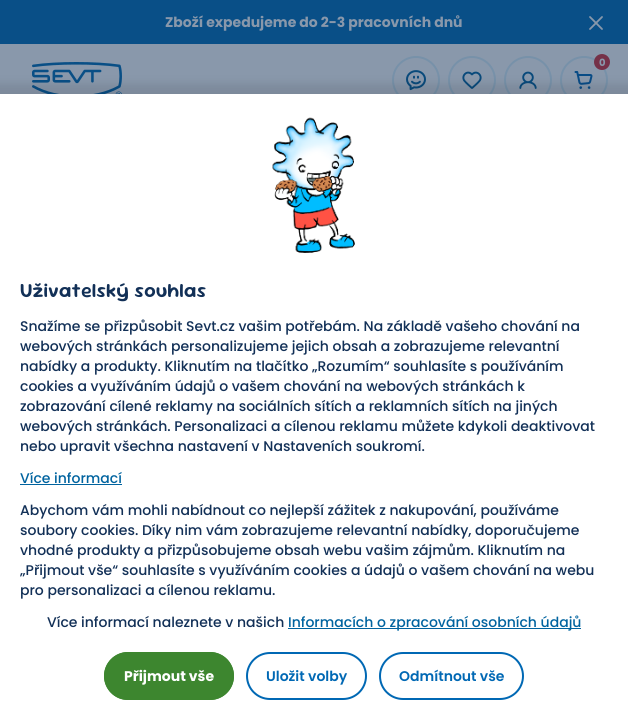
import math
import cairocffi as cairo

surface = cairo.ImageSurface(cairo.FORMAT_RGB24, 628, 720)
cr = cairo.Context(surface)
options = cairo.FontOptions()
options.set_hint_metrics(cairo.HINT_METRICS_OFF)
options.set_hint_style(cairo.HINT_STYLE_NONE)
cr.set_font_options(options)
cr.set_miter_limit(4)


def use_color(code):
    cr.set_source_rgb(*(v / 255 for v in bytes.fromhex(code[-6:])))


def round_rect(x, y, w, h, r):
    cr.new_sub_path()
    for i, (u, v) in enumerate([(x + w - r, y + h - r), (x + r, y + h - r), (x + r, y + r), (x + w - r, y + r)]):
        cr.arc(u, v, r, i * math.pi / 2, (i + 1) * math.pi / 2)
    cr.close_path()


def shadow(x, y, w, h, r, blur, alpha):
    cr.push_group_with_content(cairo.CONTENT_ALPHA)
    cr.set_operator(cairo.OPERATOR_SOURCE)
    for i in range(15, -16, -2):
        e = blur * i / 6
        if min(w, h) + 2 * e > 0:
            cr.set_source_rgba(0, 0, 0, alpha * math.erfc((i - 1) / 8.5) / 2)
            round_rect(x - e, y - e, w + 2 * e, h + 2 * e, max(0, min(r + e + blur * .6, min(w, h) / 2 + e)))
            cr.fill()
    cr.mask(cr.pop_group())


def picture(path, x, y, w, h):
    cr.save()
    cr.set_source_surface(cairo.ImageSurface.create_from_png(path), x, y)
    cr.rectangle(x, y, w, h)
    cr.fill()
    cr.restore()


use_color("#8998ab")
cr.paint()
use_color("#094f87")
cr.rectangle(0, 0, 628, 44)
cr.fill()
cr.select_font_face("Poppins", cairo.FONT_SLANT_NORMAL, cairo.FONT_WEIGHT_BOLD)
cr.set_font_size(14)
use_color("#8998ab")
cr.move_to(165, 27)
cr.show_text("Zboží expedujeme do 2-3 pracovních dnů")
picture("img1.png", 589, 16, 14, 14)
picture("img2.png", 32, 62, 90, 32)
cr.arc(416, 80, 23, 0, 2 * math.pi)
use_color("#7791a9")
cr.stroke()
picture("img3.png", 406, 70, 20, 21)
cr.arc(472, 80, 23, 0, 2 * math.pi)
cr.stroke()
picture("img4.png", 462, 71, 20, 18)
cr.arc(528, 80, 23, 0, 2 * math.pi)
cr.stroke()
picture("img5.png", 519, 71, 18, 18)
cr.arc(584, 80, 23, 0, 2 * math.pi)
cr.stroke()
use_color("#753148")
cr.arc(602, 62, 8, 0, 2 * math.pi)
cr.fill()
cr.set_font_size(10)
use_color("#8998ab")
cr.move_to(599, 66)
cr.show_text("0")
picture("img6.png", 574, 71, 19, 18)
use_color("#000000")
shadow(-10, 84, 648, 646, 0, 5, 0.1)
use_color("#ffffff")
cr.rectangle(0, 94, 628, 626)
cr.fill()
picture("img7.png", 272, 117, 83, 136)
cr.select_font_face("Sour Gummy SemiBold")
cr.set_font_size(20)
use_color("#123057")
cr.move_to(20, 297)
cr.show_text("Uživatelský souhlas")
cr.select_font_face("Poppins Medium")
cr.set_font_size(14)
cr.move_to(20, 331)
cr.show_text("Snažíme se přizpůsobit Sevt.cz vašim potřebám. Na základě vašeho chování na")
cr.move_to(20, 351)
cr.show_text("webových stránkách personalizujeme jejich obsah a zobrazujeme relevantní")
cr.move_to(20, 371)
cr.show_text("nabídky a produkty. Kliknutím na tlačítko „Rozumím“ souhlasíte s používáním")
cr.move_to(20, 391)
cr.show_text("cookies a využíváním údajů o vašem chování na webových stránkách k")
cr.move_to(20, 411)
cr.show_text("zobrazování cílené reklamy na sociálních sítích a reklamních sítích na jiných")
cr.move_to(20, 431)
cr.show_text("webových stránkách. Personalizaci a cílenou reklamu můžete kdykoli deaktivovat")
cr.move_to(20, 451)
cr.show_text("nebo upravit všechna nastavení v Nastaveních soukromí.")
use_color("#00639f")
cr.move_to(20, 483)
cr.show_text("Více informací")
cr.rectangle(20, 484, 102, 1)
cr.fill()
use_color("#123057")
cr.move_to(20, 515)
cr.show_text("Abychom vám mohli nabídnout co nejlepší zážitek z nakupování, používáme")
cr.move_to(20, 535)
cr.show_text("soubory cookies. Díky nim vám zobrazujeme relevantní nabídky, doporučujeme")
cr.move_to(20, 555)
cr.show_text("vhodné produkty a přizpůsobujeme obsah webu vašim zájmům. Kliknutím na")
cr.move_to(20, 575)
cr.show_text("„Přijmout vše“ souhlasíte s využíváním cookies a údajů o vašem chování na webu")
cr.move_to(20, 595)
cr.show_text("pro personalizaci a cílenou reklamu.")
cr.move_to(47, 627)
cr.show_text("Více informací naleznete v našich")
use_color("#00639f")
cr.rectangle(288, 628, 293, 1)
cr.fill()
cr.move_to(288, 627)
cr.show_text("Informacích o zpracování osobních údajů")
use_color("#3d862f")
round_rect(104, 652, 130, 48, 24)
cr.fill()
round_rect(105, 653, 128, 46, 23)
cr.stroke()
cr.select_font_face("Poppins", cairo.FONT_SLANT_NORMAL, cairo.FONT_WEIGHT_BOLD)
use_color("#ffffff")
cr.move_to(124, 681)
cr.show_text("Přijmout vše")
round_rect(247, 653, 119, 46, 23)
use_color("#0068b4")
cr.stroke()
cr.select_font_face("Poppins SemiBold")
cr.move_to(266, 681)
cr.show_text("Uložit volby")
round_rect(380, 653, 143, 46, 23)
cr.stroke()
cr.move_to(399, 681)
cr.show_text("Odmítnout vše")
surface.write_to_png("result.png")
